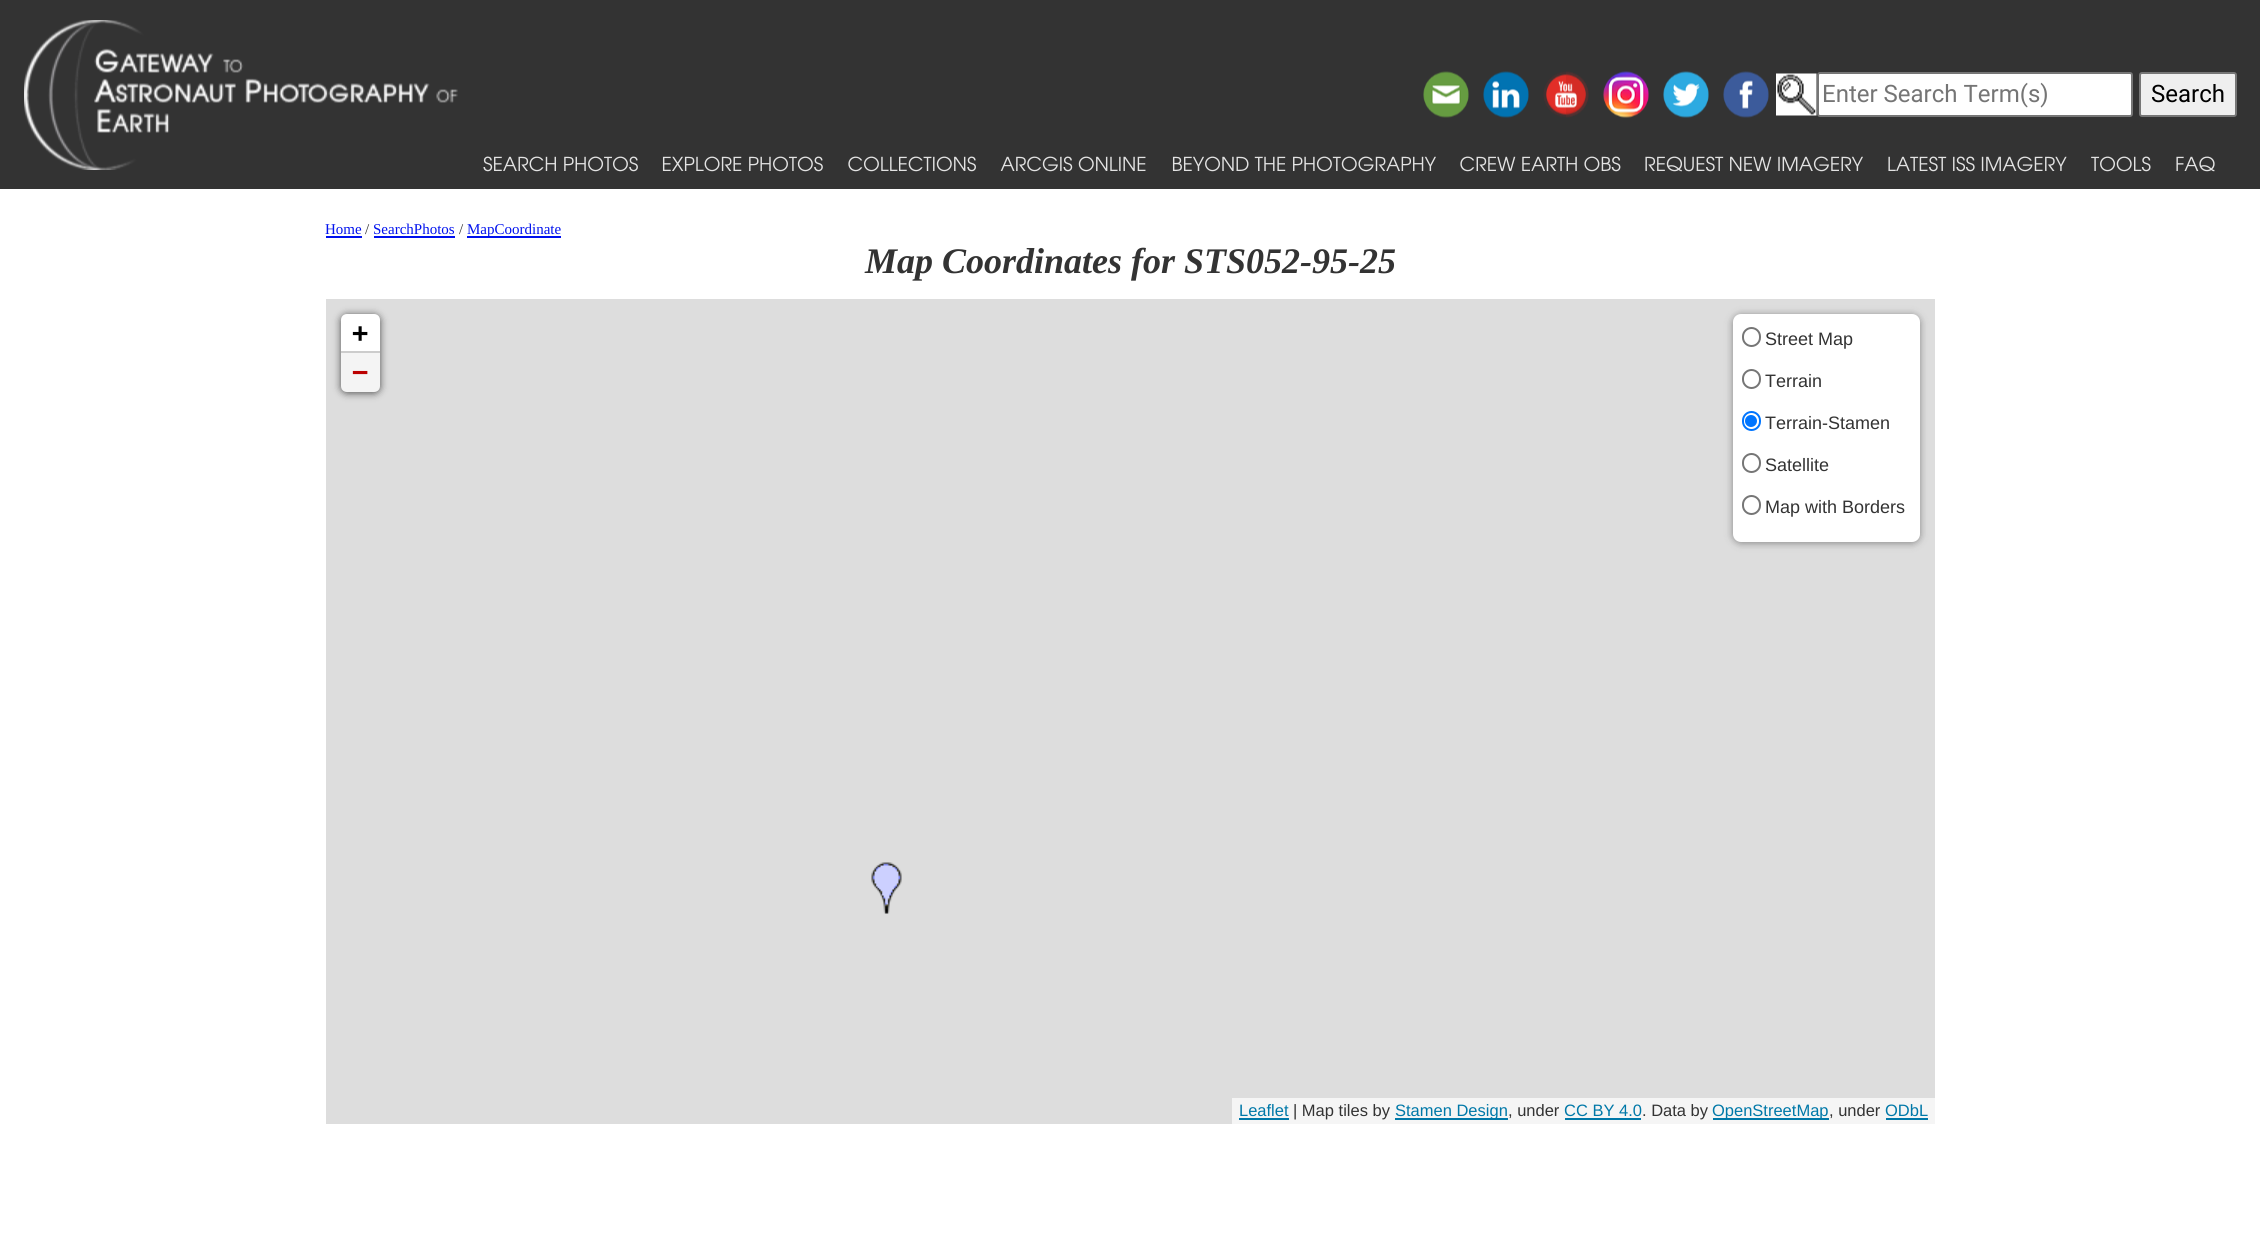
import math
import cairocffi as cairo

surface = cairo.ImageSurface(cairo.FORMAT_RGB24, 2260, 1243)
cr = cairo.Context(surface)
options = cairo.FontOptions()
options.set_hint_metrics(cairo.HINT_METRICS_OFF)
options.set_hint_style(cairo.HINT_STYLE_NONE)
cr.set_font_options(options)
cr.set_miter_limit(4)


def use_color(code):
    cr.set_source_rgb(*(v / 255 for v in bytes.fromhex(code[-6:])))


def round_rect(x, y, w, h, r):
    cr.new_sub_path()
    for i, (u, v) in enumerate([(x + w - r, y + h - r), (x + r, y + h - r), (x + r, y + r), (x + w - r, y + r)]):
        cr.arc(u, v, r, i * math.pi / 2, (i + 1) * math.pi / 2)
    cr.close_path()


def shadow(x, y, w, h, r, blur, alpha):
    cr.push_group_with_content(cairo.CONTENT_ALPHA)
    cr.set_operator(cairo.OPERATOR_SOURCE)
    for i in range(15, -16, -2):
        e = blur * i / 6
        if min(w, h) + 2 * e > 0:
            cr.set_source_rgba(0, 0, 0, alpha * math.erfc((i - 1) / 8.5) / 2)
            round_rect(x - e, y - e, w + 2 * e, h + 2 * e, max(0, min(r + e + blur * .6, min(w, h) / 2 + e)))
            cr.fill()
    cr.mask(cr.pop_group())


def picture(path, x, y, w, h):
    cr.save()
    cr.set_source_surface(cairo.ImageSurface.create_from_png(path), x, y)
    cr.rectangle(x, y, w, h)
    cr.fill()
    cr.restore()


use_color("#ffffff")
cr.paint()
use_color("#333333")
cr.rectangle(0, 0, 2260, 189)
cr.fill()
picture("img1.png", 24, 20, 434, 150)
picture("img2.png", 1423, 71, 46, 47)
picture("img3.png", 1483, 71, 46, 47)
picture("img4.png", 1543, 71, 46, 47)
picture("img5.png", 1603, 71, 46, 47)
picture("img6.png", 1663, 71, 46, 47)
picture("img7.png", 1723, 71, 46, 47)
picture("img8.png", 1776, 73, 41, 43)
use_color("#ffffff")
round_rect(1818, 73, 314, 43, 2)
cr.fill_preserve()
use_color("#767676")
cr.stroke()
cr.select_font_face("Roboto")
cr.set_font_size(24)
use_color("#757575")
cr.move_to(1822, 102)
cr.show_text("Enter Search Term(s)")
use_color("#efefef")
round_rect(2140, 73, 96, 43, 2)
cr.fill_preserve()
use_color("#767676")
cr.stroke()
use_color("#000000")
cr.move_to(2151, 102)
cr.show_text("Search")
picture("img9.png", 483, 156, 155, 16)
picture("img10.png", 662, 156, 161, 16)
picture("img11.png", 848, 156, 128, 16)
picture("img12.png", 1000, 156, 146, 16)
picture("img13.png", 1172, 156, 264, 16)
picture("img14.png", 1460, 156, 161, 16)
picture("img15.png", 1645, 156, 218, 16)
picture("img16.png", 1888, 156, 179, 16)
picture("img17.png", 2091, 156, 60, 16)
picture("img18.png", 2176, 156, 39, 16)
cr.select_font_face("Liberation Serif")
cr.set_font_size(15)
use_color("#0011ee")
cr.move_to(325, 234)
cr.show_text("Home")
cr.rectangle(326, 236, 36, 2)
cr.fill()
use_color("#333333")
cr.move_to(365, 234)
cr.show_text("/")
use_color("#0011ee")
cr.move_to(373, 234)
cr.show_text("SearchPhotos")
cr.rectangle(374, 236, 81, 2)
cr.fill()
use_color("#333333")
cr.move_to(459, 234)
cr.show_text("/")
use_color("#0011ee")
cr.rectangle(467, 236, 94, 2)
cr.fill()
cr.move_to(467, 234)
cr.show_text("MapCoordinate")
cr.select_font_face("Liberation Serif", cairo.FONT_SLANT_ITALIC, cairo.FONT_WEIGHT_BOLD)
cr.set_font_size(36)
use_color("#333333")
cr.move_to(865, 273)
cr.show_text("Map Coordinates for STS052-95-25")
use_color("#dddddd")
cr.rectangle(326, 299, 1609, 825)
cr.fill()
use_color("#000000")
shadow(341, 315, 39, 78, 6, 4, 0.65)
use_color("#ffffff")
cr.new_path()
cr.move_to(347, 314)
cr.line_to(374, 314)
cr.curve_to(377.5, 314, 380, 316.5, 380, 320)
cr.line_to(380, 353)
cr.line_to(341, 353)
cr.line_to(341, 320)
cr.curve_to(341, 316.5, 343.5, 314, 347, 314)
cr.close_path()
cr.fill()
use_color("#cccccc")
cr.rectangle(341, 351, 39, 2)
cr.fill()
cr.select_font_face("DejaVu Sans Mono", cairo.FONT_SLANT_NORMAL, cairo.FONT_WEIGHT_BOLD)
cr.set_font_size(27)
use_color("#000000")
cr.move_to(352, 342)
cr.show_text("+")
use_color("#f4f4f4")
cr.new_path()
cr.move_to(341, 353)
cr.line_to(380, 353)
cr.line_to(380, 386)
cr.curve_to(380, 389.5, 377.5, 392, 374, 392)
cr.line_to(347, 392)
cr.curve_to(343.5, 392, 341, 389.5, 341, 386)
cr.close_path()
cr.fill()
use_color("#bb0000")
cr.move_to(352, 381)
cr.show_text("−")
use_color("#000000")
shadow(1733, 315, 187, 228, 8, 4, 0.4)
use_color("#ffffff")
round_rect(1733, 314, 187, 228, 8)
cr.fill()
round_rect(1743, 328, 17, 18, 8.5)
use_color("#767676")
cr.stroke()
cr.select_font_face("Liberation Sans")
cr.set_font_size(18)
use_color("#333333")
cr.move_to(1765, 345)
cr.show_text("Street Map")
round_rect(1743, 370, 17, 18, 8.5)
use_color("#767676")
cr.stroke()
use_color("#333333")
cr.move_to(1765, 387)
cr.show_text("Terrain")
round_rect(1743, 412, 17, 18, 8.5)
use_color("#0075ff")
cr.stroke()
cr.arc(1751, 421, 6, 0, 2 * math.pi)
cr.fill()
use_color("#333333")
cr.move_to(1765, 429)
cr.show_text("Terrain-Stamen")
round_rect(1743, 454, 17, 18, 8.5)
use_color("#767676")
cr.stroke()
use_color("#333333")
cr.move_to(1765, 471)
cr.show_text("Satellite")
round_rect(1743, 496, 17, 18, 8.5)
use_color("#767676")
cr.stroke()
use_color("#333333")
cr.move_to(1765, 513)
cr.show_text("Map with Borders")
use_color("#f5f5f5")
cr.rectangle(1232, 1098, 703, 26)
cr.fill()
cr.set_font_size(16.5)
use_color("#0078a8")
cr.move_to(1239, 1116)
cr.show_text("Leaflet")
cr.rectangle(1239, 1118, 50, 2)
cr.fill()
use_color("#333333")
cr.move_to(1293, 1116)
cr.show_text("| Map tiles by")
use_color("#0078a8")
cr.rectangle(1395, 1118, 113, 2)
cr.fill()
cr.move_to(1395, 1116)
cr.show_text("Stamen Design")
use_color("#333333")
cr.move_to(1508, 1116)
cr.show_text(", under")
use_color("#0078a8")
cr.move_to(1564, 1116)
cr.show_text("CC BY 4.0")
cr.rectangle(1565, 1118, 76, 2)
cr.fill()
use_color("#333333")
cr.move_to(1642, 1116)
cr.show_text(". Data by")
use_color("#0078a8")
cr.rectangle(1713, 1118, 116, 2)
cr.fill()
cr.move_to(1712, 1116)
cr.show_text("OpenStreetMap")
use_color("#333333")
cr.move_to(1829, 1116)
cr.show_text(", under")
use_color("#0078a8")
cr.move_to(1885, 1116)
cr.show_text("ODbL")
cr.rectangle(1886, 1118, 42, 2)
cr.fill()
picture("img19.png", 871, 862, 31, 52)
surface.write_to_png("result.png")
